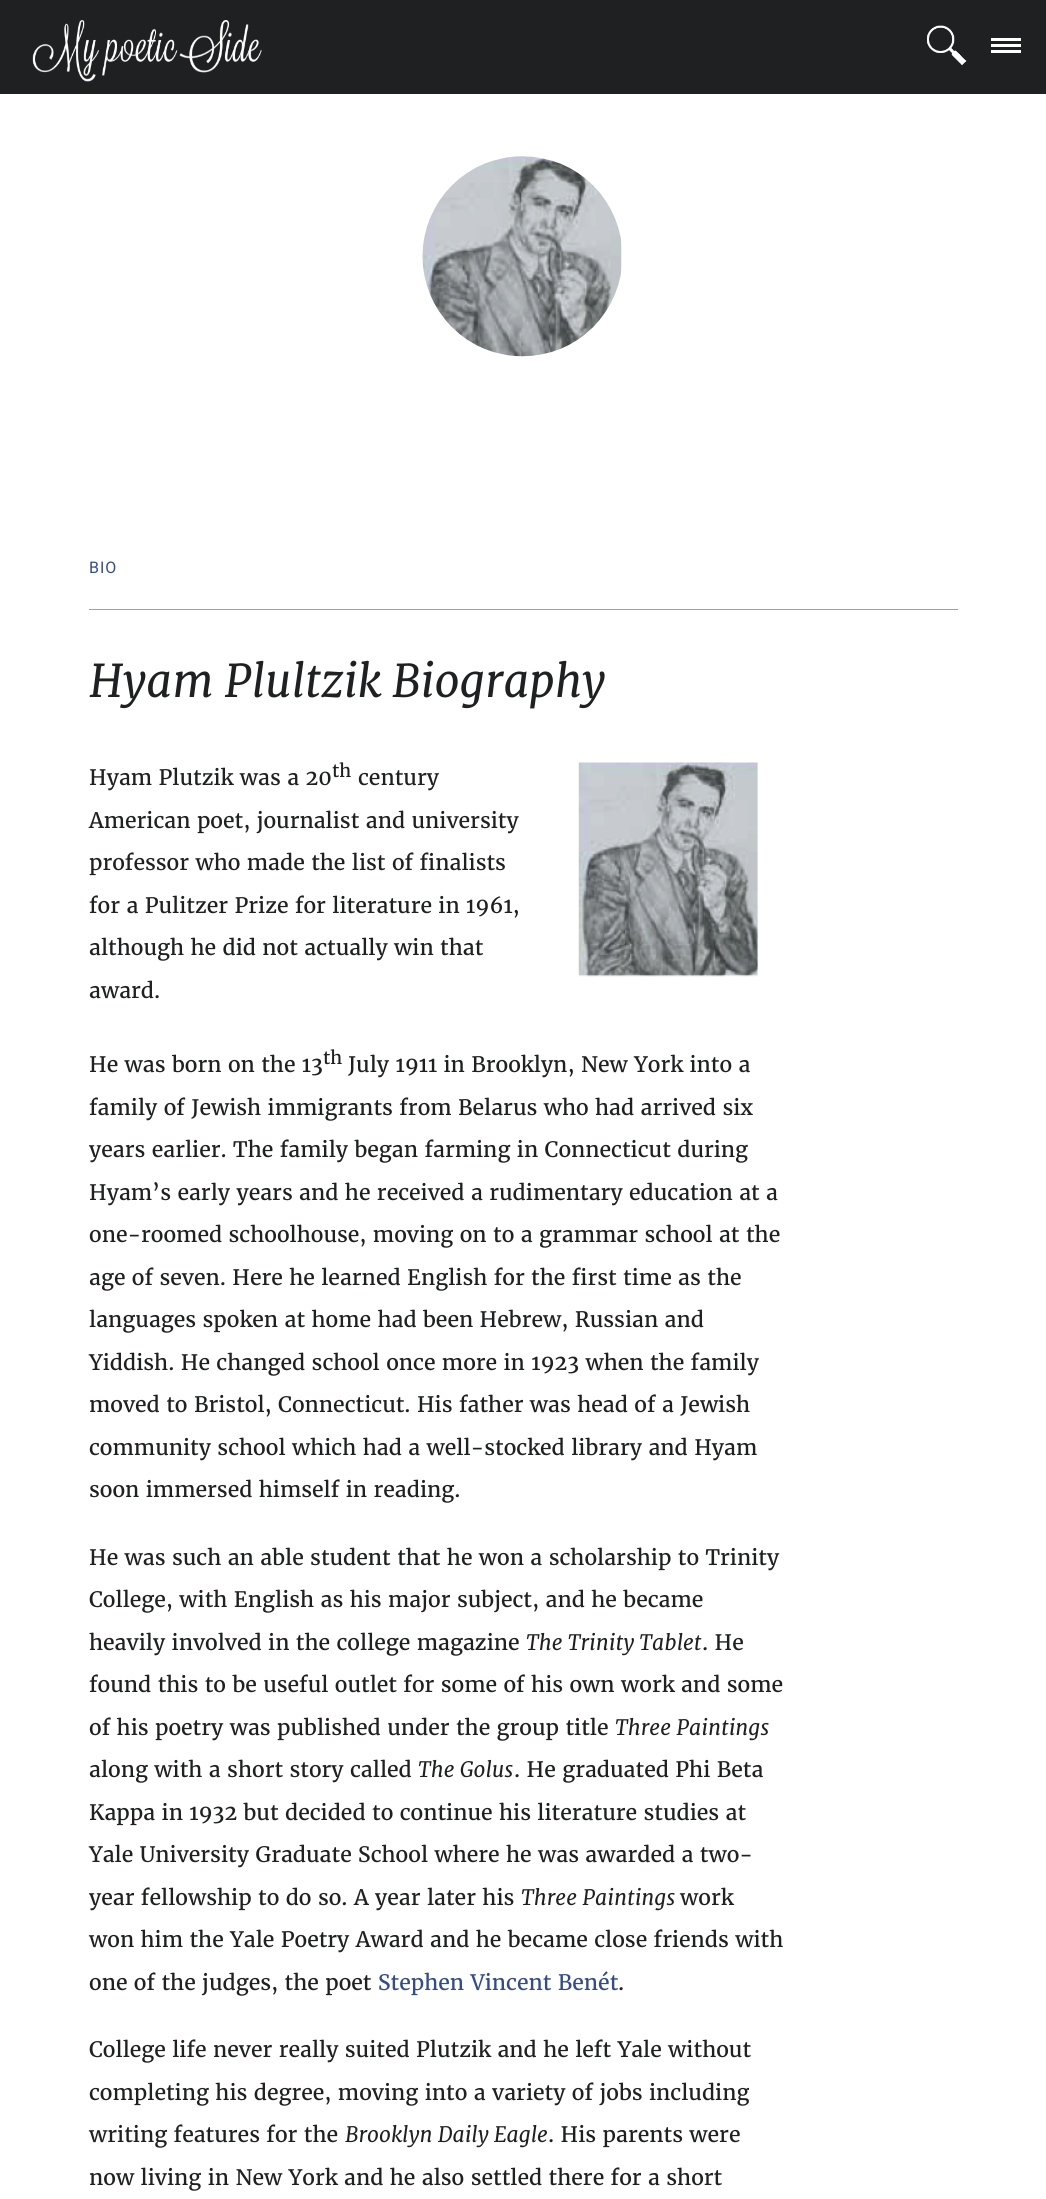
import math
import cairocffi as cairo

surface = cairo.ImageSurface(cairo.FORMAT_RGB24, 1046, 2199)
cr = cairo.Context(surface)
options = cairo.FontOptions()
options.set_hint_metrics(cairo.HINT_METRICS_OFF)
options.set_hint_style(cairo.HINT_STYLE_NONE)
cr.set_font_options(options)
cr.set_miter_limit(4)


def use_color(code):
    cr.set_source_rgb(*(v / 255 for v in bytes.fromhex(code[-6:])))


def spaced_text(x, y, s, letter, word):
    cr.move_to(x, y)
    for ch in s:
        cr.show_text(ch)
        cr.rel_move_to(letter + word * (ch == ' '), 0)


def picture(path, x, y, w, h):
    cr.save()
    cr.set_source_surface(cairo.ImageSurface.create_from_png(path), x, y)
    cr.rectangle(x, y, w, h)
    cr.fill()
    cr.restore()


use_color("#1f2021")
cr.paint()
picture("img1.png", 32, 20, 230, 62)
picture("img2.png", 927, 25, 40, 40)
use_color("#ffffff")
cr.rectangle(991, 44, 30, 3)
cr.fill()
cr.rectangle(991, 38, 30, 3)
cr.fill()
cr.rectangle(991, 50, 30, 3)
cr.fill()
cr.rectangle(0, 94, 1046, 2105)
cr.fill()
picture("img3.png", 422, 156, 200, 201)
use_color("#9ca1a6")
cr.rectangle(89, 609, 869, 1)
cr.fill()
cr.select_font_face("Roboto")
cr.set_font_size(16)
use_color("#324c8c")
spaced_text(89, 573, "BIO", 1, 0)
cr.select_font_face("Merriweather", cairo.FONT_SLANT_ITALIC)
cr.set_font_size(45)
use_color("#1f2021")
cr.move_to(89, 697)
cr.show_text("Hyam Plultzik Biography")
cr.select_font_face("Merriweather")
cr.set_font_size(21.25)
cr.move_to(89, 785)
cr.show_text("Hyam Plutzik was a 20")
cr.set_font_size(18)
cr.move_to(332, 777)
cr.show_text("th")
cr.set_font_size(21.25)
cr.move_to(358, 785)
cr.show_text("century")
picture("img4.png", 578, 762, 181, 215)
cr.move_to(89, 828)
cr.show_text("American poet, journalist and university")
cr.move_to(89, 870)
cr.show_text("professor who made the list of finalists")
cr.move_to(89, 913)
cr.show_text("for a Pulitzer Prize for literature in 1961,")
cr.move_to(89, 955)
cr.show_text("although he did not actually win that")
cr.move_to(89, 998)
cr.show_text("award.")
cr.move_to(89, 1072)
cr.show_text("He was born on the 13")
cr.set_font_size(18)
cr.move_to(323, 1064)
cr.show_text("th")
cr.set_font_size(21.25)
cr.move_to(348, 1072)
cr.show_text("July 1911 in Brooklyn, New York into a")
cr.move_to(89, 1115)
cr.show_text("family of Jewish immigrants from Belarus who had arrived six")
cr.move_to(89, 1157)
cr.show_text("years earlier. The family began farming in Connecticut during")
cr.move_to(89, 1200)
cr.show_text("Hyam’s early years and he received a rudimentary education at a")
cr.move_to(89, 1242)
cr.show_text("one-roomed schoolhouse, moving on to a grammar school at the")
cr.move_to(89, 1285)
cr.show_text("age of seven. Here he learned English for the first time as the")
cr.move_to(89, 1327)
cr.show_text("languages spoken at home had been Hebrew, Russian and")
cr.move_to(89, 1370)
cr.show_text("Yiddish. He changed school once more in 1923 when the family")
cr.move_to(89, 1412)
cr.show_text("moved to Bristol, Connecticut. His father was head of a Jewish")
cr.move_to(89, 1455)
cr.show_text("community school which had a well-stocked library and Hyam")
cr.move_to(89, 1497)
cr.show_text("soon immersed himself in reading.")
cr.move_to(89, 1565)
cr.show_text("He was such an able student that he won a scholarship to Trinity")
cr.move_to(89, 1607)
cr.show_text("College, with English as his major subject, and he became")
cr.move_to(89, 1650)
cr.show_text("heavily involved in the college magazine")
cr.select_font_face("Merriweather", cairo.FONT_SLANT_ITALIC)
cr.move_to(526, 1650)
cr.show_text("The Trinity Tablet")
cr.select_font_face("Merriweather")
cr.move_to(702, 1650)
cr.show_text(". He")
cr.move_to(89, 1692)
cr.show_text("found this to be useful outlet for some of his own work and some")
cr.move_to(89, 1735)
cr.show_text("of his poetry was published under the group title")
cr.select_font_face("Merriweather", cairo.FONT_SLANT_ITALIC)
cr.move_to(615, 1735)
cr.show_text("Three Paintings")
cr.select_font_face("Merriweather")
cr.move_to(89, 1777)
cr.show_text("along with a short story called")
cr.select_font_face("Merriweather", cairo.FONT_SLANT_ITALIC)
cr.move_to(418, 1777)
cr.show_text("The Golus")
cr.select_font_face("Merriweather")
cr.move_to(514, 1777)
cr.show_text(". He graduated Phi Beta")
cr.move_to(89, 1820)
cr.show_text("Kappa in 1932 but decided to continue his literature studies at")
cr.move_to(89, 1862)
cr.show_text("Yale University Graduate School where he was awarded a two-")
cr.move_to(89, 1905)
cr.show_text("year fellowship to do so. A year later his")
cr.select_font_face("Merriweather", cairo.FONT_SLANT_ITALIC)
cr.move_to(521, 1905)
cr.show_text("Three Paintings")
cr.select_font_face("Merriweather")
cr.move_to(680, 1905)
cr.show_text("work")
cr.move_to(89, 1947)
cr.show_text("won him the Yale Poetry Award and he became close friends with")
cr.move_to(89, 1990)
cr.show_text("one of the judges, the poet")
use_color("#324c8c")
cr.move_to(378, 1990)
cr.show_text("Stephen Vincent Benét")
use_color("#1f2021")
cr.move_to(618, 1990)
cr.show_text(".")
cr.move_to(89, 2057)
cr.show_text("College life never really suited Plutzik and he left Yale without")
cr.move_to(89, 2100)
cr.show_text("completing his degree, moving into a variety of jobs including")
cr.move_to(89, 2142)
cr.show_text("writing features for the")
cr.select_font_face("Merriweather", cairo.FONT_SLANT_ITALIC)
cr.move_to(345, 2142)
cr.show_text("Brooklyn Daily Eagle")
cr.select_font_face("Merriweather")
cr.move_to(548, 2142)
cr.show_text(". His parents were")
cr.move_to(89, 2185)
cr.show_text("now living in New York and he also settled there for a short")
surface.write_to_png("result.png")
